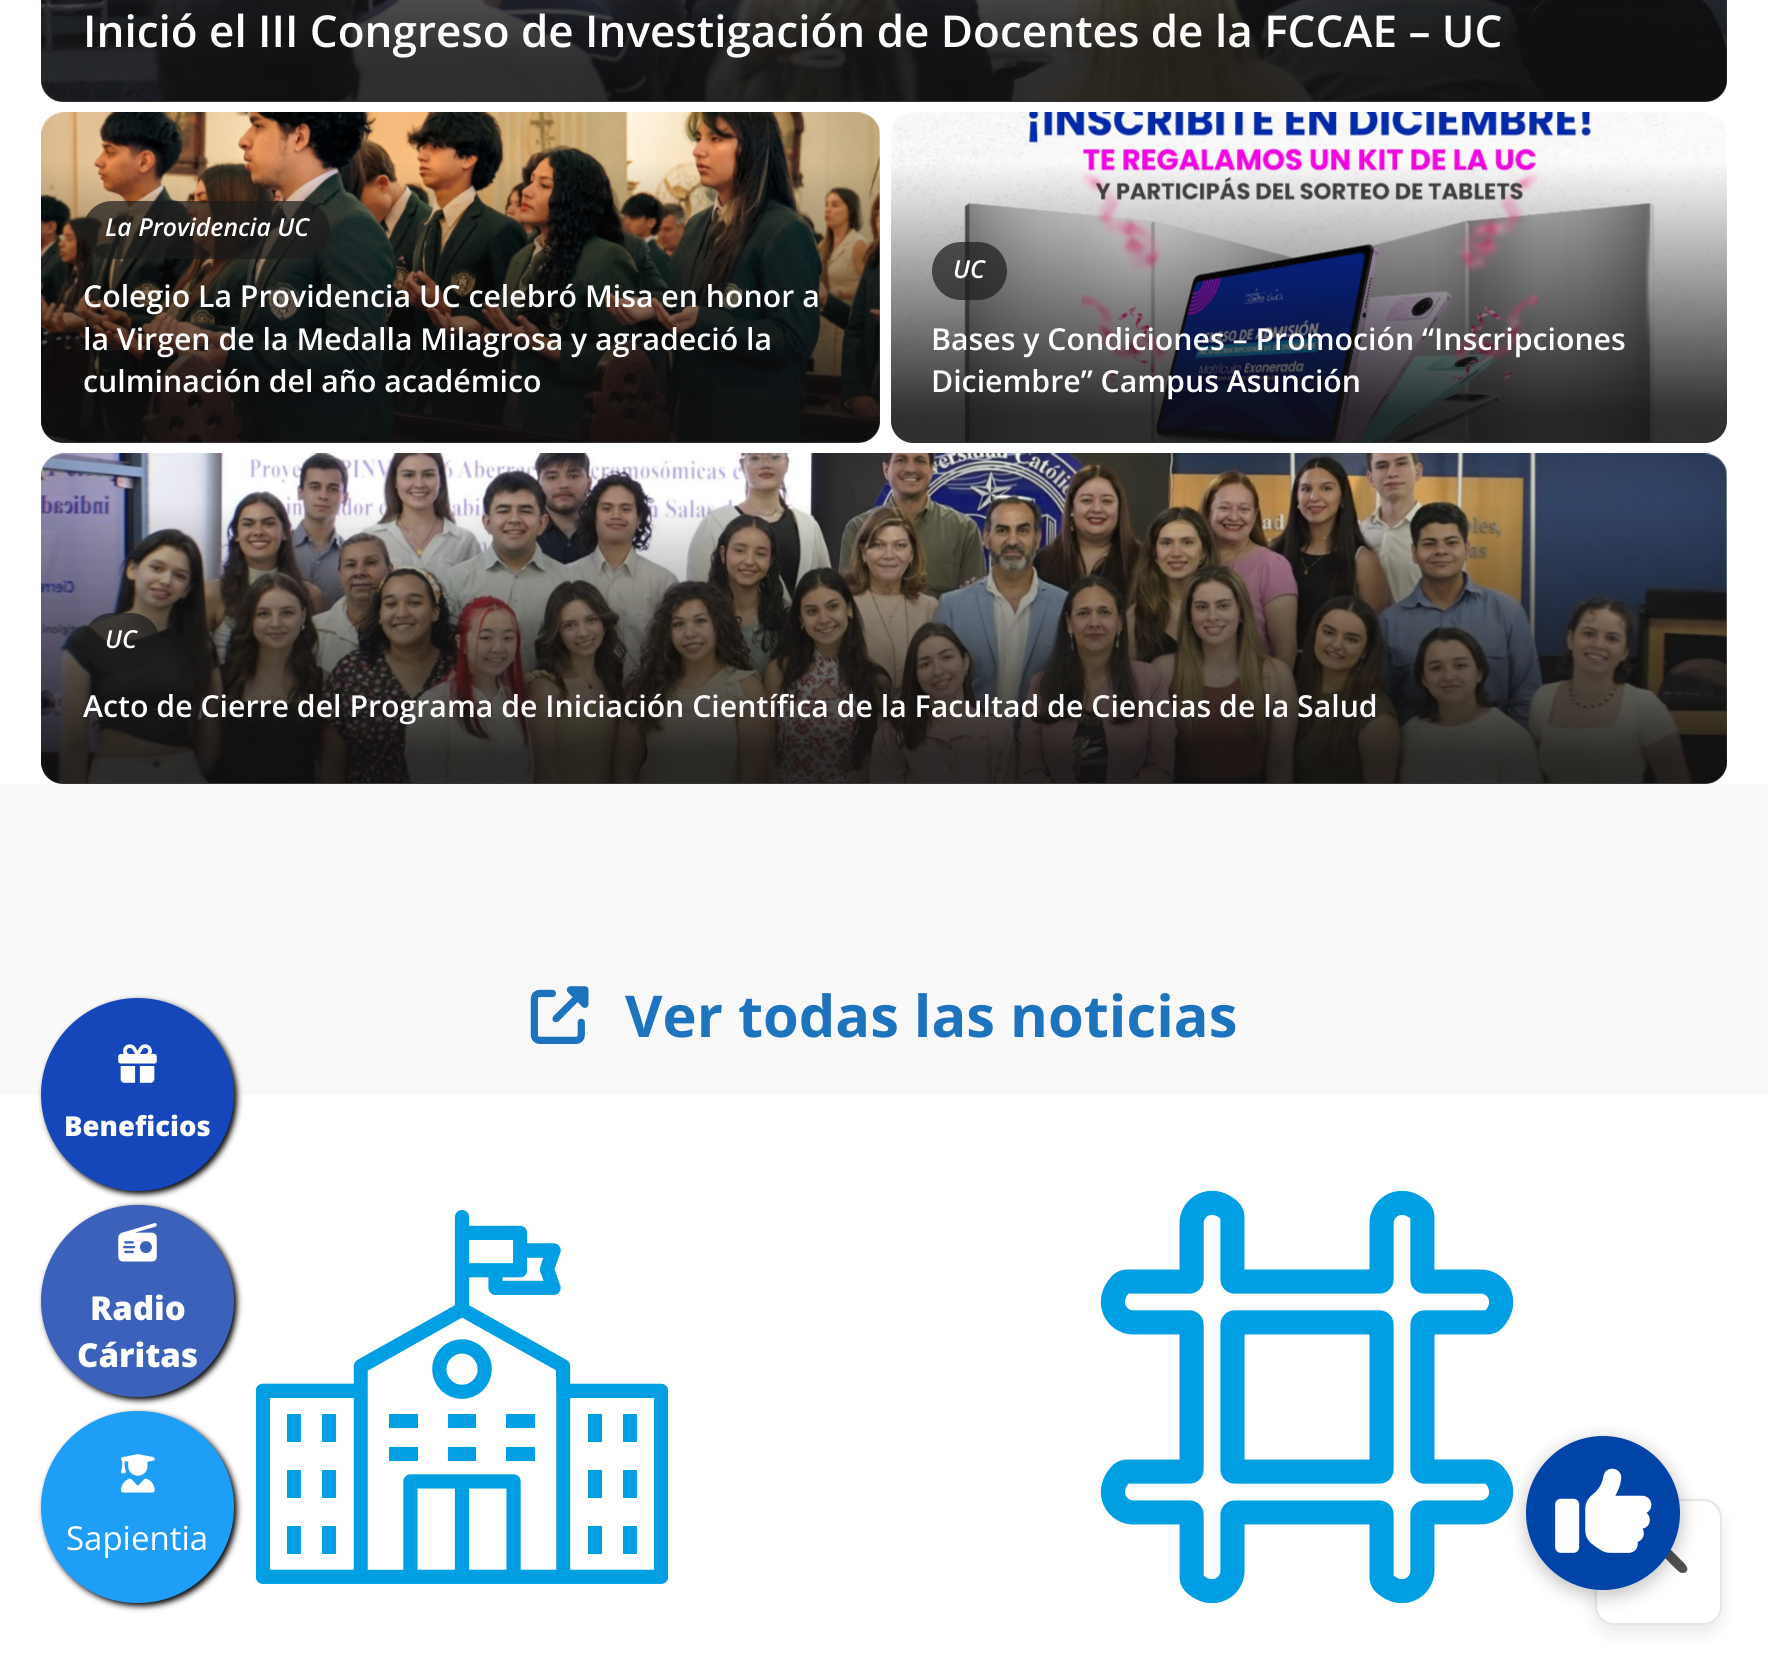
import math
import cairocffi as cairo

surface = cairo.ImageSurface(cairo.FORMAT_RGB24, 1768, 1670)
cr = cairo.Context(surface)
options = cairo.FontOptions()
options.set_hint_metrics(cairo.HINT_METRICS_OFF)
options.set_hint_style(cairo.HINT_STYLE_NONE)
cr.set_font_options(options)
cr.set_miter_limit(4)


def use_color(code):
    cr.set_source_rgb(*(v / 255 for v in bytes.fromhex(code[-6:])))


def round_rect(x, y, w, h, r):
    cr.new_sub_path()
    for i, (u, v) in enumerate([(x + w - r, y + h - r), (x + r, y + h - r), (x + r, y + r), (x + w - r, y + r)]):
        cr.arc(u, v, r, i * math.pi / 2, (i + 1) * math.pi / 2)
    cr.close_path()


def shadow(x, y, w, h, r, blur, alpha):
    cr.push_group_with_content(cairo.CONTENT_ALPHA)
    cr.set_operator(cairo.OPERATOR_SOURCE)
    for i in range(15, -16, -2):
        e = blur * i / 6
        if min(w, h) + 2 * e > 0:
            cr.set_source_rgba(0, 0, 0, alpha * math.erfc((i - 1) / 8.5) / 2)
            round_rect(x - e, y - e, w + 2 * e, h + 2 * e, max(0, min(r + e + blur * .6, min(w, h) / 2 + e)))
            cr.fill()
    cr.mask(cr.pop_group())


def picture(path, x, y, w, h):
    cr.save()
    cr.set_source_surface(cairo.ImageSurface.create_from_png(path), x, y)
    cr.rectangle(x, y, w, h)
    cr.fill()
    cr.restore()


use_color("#ffffff")
cr.paint()
picture("img1.png", 41, 0, 1686, 101)
gradient = cairo.LinearGradient(884, -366, 884, 102)
gradient.add_color_stop_rgba(0, 0.063, 0.059, 0.059, 0)
gradient.add_color_stop_rgba(0.89, 0.063, 0.059, 0.059, 0.85)
gradient.add_color_stop_rgba(0.93, 0.063, 0.059, 0.059, 0.86)
cr.set_source(gradient)
cr.new_path()
cr.move_to(41, -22)
cr.line_to(1727, -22)
cr.line_to(1727, 80)
cr.curve_to(1727, 92, 1717, 102, 1705, 102)
cr.line_to(63, 102)
cr.curve_to(51, 102, 41, 92, 41, 80)
cr.close_path()
cr.fill()
cr.select_font_face("Open Sans SemiBold")
cr.set_font_size(44)
use_color("#ffffff")
cr.move_to(83, 47)
cr.show_text("Inició el III Congreso de Investigación de Docentes de la FCCAE – UC")
picture("img2.png", 41, 112, 839, 330)
gradient = cairo.LinearGradient(461, 162, 461, 443)
gradient.add_color_stop_rgba(0, 0.063, 0.059, 0.059, 0)
gradient.add_color_stop_rgba(0.89, 0.063, 0.059, 0.059, 0.85)
gradient.add_color_stop_rgba(0.93, 0.063, 0.059, 0.059, 0.86)
cr.set_source(gradient)
cr.new_path()
cr.move_to(41, 162)
cr.line_to(880, 162)
cr.line_to(880, 421)
cr.curve_to(880, 433, 870, 443, 858, 443)
cr.line_to(63, 443)
cr.curve_to(51, 443, 41, 433, 41, 421)
cr.close_path()
cr.fill()
cr.set_source_rgba(0.11, 0.11, 0.11, 0.7)
round_rect(83, 201, 247, 58, 29)
cr.fill()
cr.select_font_face("Open Sans SemiBold", cairo.FONT_SLANT_ITALIC)
cr.set_font_size(24.75)
use_color("#ffffff")
cr.move_to(105, 236)
cr.show_text("La Providencia UC")
cr.select_font_face("Open Sans SemiBold")
cr.set_font_size(30.25)
cr.move_to(83, 307)
cr.show_text("Colegio La Providencia UC celebró Misa en honor a")
cr.move_to(83, 350)
cr.show_text("la Virgen de la Medalla Milagrosa y agradeció la")
cr.move_to(83, 392)
cr.show_text("culminación del año académico")
picture("img3.png", 891, 112, 836, 330)
gradient = cairo.LinearGradient(1309, 162, 1309, 443)
gradient.add_color_stop_rgba(0, 0.063, 0.059, 0.059, 0)
gradient.add_color_stop_rgba(0.89, 0.063, 0.059, 0.059, 0.85)
gradient.add_color_stop_rgba(0.93, 0.063, 0.059, 0.059, 0.86)
cr.set_source(gradient)
cr.new_path()
cr.move_to(891, 162)
cr.line_to(1727, 162)
cr.line_to(1727, 421)
cr.curve_to(1727, 433, 1717, 443, 1705, 443)
cr.line_to(913, 443)
cr.curve_to(901, 443, 891, 433, 891, 421)
cr.close_path()
cr.fill()
cr.set_source_rgba(0.11, 0.11, 0.11, 0.7)
round_rect(932, 242, 75, 58, 29)
cr.fill()
cr.select_font_face("Open Sans SemiBold", cairo.FONT_SLANT_ITALIC)
cr.set_font_size(24.75)
use_color("#ffffff")
cr.move_to(953, 278)
cr.show_text("UC")
cr.select_font_face("Open Sans SemiBold")
cr.set_font_size(30.25)
cr.move_to(931, 350)
cr.show_text("Bases y Condiciones – Promoción “Inscripciones")
cr.move_to(931, 392)
cr.show_text("Diciembre” Campus Asunción")
picture("img4.png", 41, 453, 1686, 330)
gradient = cairo.LinearGradient(884, 503, 884, 784)
gradient.add_color_stop_rgba(0, 0.063, 0.059, 0.059, 0)
gradient.add_color_stop_rgba(0.89, 0.063, 0.059, 0.059, 0.85)
gradient.add_color_stop_rgba(0.93, 0.063, 0.059, 0.059, 0.86)
cr.set_source(gradient)
cr.new_path()
cr.move_to(41, 503)
cr.line_to(1727, 503)
cr.line_to(1727, 762)
cr.curve_to(1727, 774, 1717, 784, 1705, 784)
cr.line_to(63, 784)
cr.curve_to(51, 784, 41, 774, 41, 762)
cr.close_path()
cr.fill()
cr.set_source_rgba(0.11, 0.11, 0.11, 0.7)
round_rect(83, 613, 77, 58, 29)
cr.fill()
cr.select_font_face("Open Sans SemiBold", cairo.FONT_SLANT_ITALIC)
cr.set_font_size(24.75)
use_color("#ffffff")
cr.move_to(105, 648)
cr.show_text("UC")
cr.select_font_face("Open Sans SemiBold")
cr.set_font_size(30.25)
cr.move_to(83, 717)
cr.show_text("Acto de Cierre del Programa de Iniciación Científica de la Facultad de Ciencias de la Salud")
use_color("#f9f9f9")
cr.rectangle(0, 784, 1768, 311)
cr.fill()
picture("img5.png", 530, 986, 59, 58)
cr.select_font_face("Open Sans", cairo.FONT_SLANT_NORMAL, cairo.FONT_WEIGHT_BOLD)
cr.set_font_size(57.75)
use_color("#1e73be")
cr.move_to(625, 1037)
cr.show_text("Ver todas las noticias")
picture("img6.png", 256, 1210, 412, 374)
picture("img7.png", 1100, 1191, 413, 412)
use_color("#000000")
shadow(1592, 1504, 132, 132, 22, 7.5, 0.07)
use_color("#ffffff")
round_rect(1595, 1499, 127, 126, 19)
cr.fill()
round_rect(1596, 1500, 125, 124, 18)
cr.set_source_rgba(0, 0, 0, 0.1)
cr.stroke()
use_color("#505050")
cr.new_path()
cr.move_to(1655, 1541)
cr.curve_to(1659, 1537, 1663, 1542, 1666, 1545)
cr.line_to(1682, 1561)
cr.curve_to(1684, 1563, 1690, 1568, 1686, 1572)
cr.curve_to(1685, 1573, 1683, 1573, 1681, 1573)
cr.curve_to(1678, 1572, 1662, 1555, 1659, 1551)
cr.line_to(1645, 1565)
cr.curve_to(1642, 1568, 1638, 1575, 1633, 1573)
cr.curve_to(1625, 1568, 1637, 1559, 1639, 1557)
cr.close_path()
cr.fill()
use_color("#020202")
shadow(44, 1001, 193, 193, 96.5, 3, 1)
use_color("#1647ba")
cr.arc(137.5, 1094.5, 96.5, 0, 2 * math.pi)
cr.fill()
picture("img8.png", 118, 1044, 39, 39)
cr.select_font_face("Open Sans ExtraBold")
cr.set_font_size(27.5)
use_color("#ffffff")
cr.move_to(64, 1136)
cr.show_text("Beneficios")
use_color("#020202")
shadow(44, 1207, 193, 193, 96.5, 3, 1)
use_color("#3b61ba")
round_rect(41, 1205, 193, 192, 96)
cr.fill()
picture("img9.png", 118, 1223, 39, 39)
cr.set_font_size(33)
use_color("#ffffff")
cr.move_to(90, 1320)
cr.show_text("Radio")
cr.move_to(77, 1367)
cr.show_text("Cáritas")
use_color("#020202")
shadow(44, 1414, 193, 192, 96, 3, 1)
use_color("#1f9ef8")
round_rect(41, 1411, 193, 192, 96)
cr.fill()
picture("img10.png", 121, 1454, 34, 39)
cr.select_font_face("Open Sans")
use_color("#ffffff")
cr.move_to(66, 1550)
cr.show_text("Sapientia")
use_color("#000000")
shadow(1524, 1438, 159, 160, 79.5, 8, 0.2)
use_color("#0044a8")
cr.arc(1603, 1513, 77, 0, 2 * math.pi)
cr.fill()
picture("img11.png", 1555, 1468, 97, 85)
surface.write_to_png("result.png")
